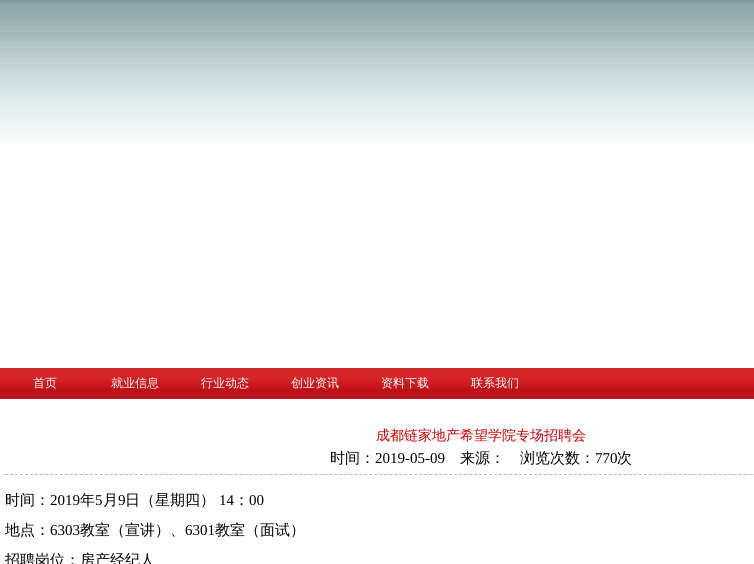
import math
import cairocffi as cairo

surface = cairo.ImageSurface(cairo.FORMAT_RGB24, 754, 564)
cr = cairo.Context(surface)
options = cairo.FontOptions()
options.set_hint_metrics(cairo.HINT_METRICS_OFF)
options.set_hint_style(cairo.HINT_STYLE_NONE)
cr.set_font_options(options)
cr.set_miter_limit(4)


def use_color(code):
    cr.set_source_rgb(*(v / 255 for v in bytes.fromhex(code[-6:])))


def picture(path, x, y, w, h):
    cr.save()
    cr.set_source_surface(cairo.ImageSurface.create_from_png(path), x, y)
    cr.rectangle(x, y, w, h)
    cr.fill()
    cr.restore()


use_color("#ffffff")
cr.paint()
picture("img1.png", 0, 0, 754, 144)
picture("img2.png", 0, 368, 754, 31)
cr.select_font_face("WenQuanYi Zen Hei Medium")
cr.set_font_size(12)
use_color("#ffffff")
cr.move_to(33, 387)
cr.show_text("首页")
cr.move_to(111, 387)
cr.show_text("就业信息")
cr.move_to(201, 387)
cr.show_text("行业动态")
cr.move_to(291, 387)
cr.show_text("创业资讯")
cr.move_to(381, 387)
cr.show_text("资料下载")
cr.move_to(471, 387)
cr.show_text("联系我们")
cr.new_path()
cr.move_to(5, 474.5)
cr.line_to(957, 474.5)
use_color("#bababa")
cr.set_line_width(1)
cr.set_dash([3, 1.99])
cr.stroke()
cr.set_font_size(14)
use_color("#cc0000")
cr.move_to(376, 440)
cr.show_text("成都链家地产希望学院专场招聘会")
cr.set_font_size(15)
use_color("#000000")
cr.move_to(330, 463)
cr.show_text("时间：")
cr.select_font_face("Liberation Serif")
cr.move_to(375, 463)
cr.show_text("2019-05-09")
cr.select_font_face("WenQuanYi Zen Hei Medium")
cr.move_to(460, 463)
cr.show_text("来源：　浏览次数：")
cr.select_font_face("Liberation Serif")
cr.move_to(595, 463)
cr.show_text("770")
cr.select_font_face("WenQuanYi Zen Hei Medium")
cr.move_to(617, 463)
cr.show_text("次")
cr.move_to(5, 505)
cr.show_text("时间：")
cr.select_font_face("Liberation Serif")
cr.move_to(50, 505)
cr.show_text("2019")
cr.select_font_face("WenQuanYi Zen Hei Medium")
cr.move_to(80, 505)
cr.show_text("年")
cr.select_font_face("Liberation Serif")
cr.move_to(95, 505)
cr.show_text("5")
cr.select_font_face("WenQuanYi Zen Hei Medium")
cr.move_to(103, 505)
cr.show_text("月")
cr.select_font_face("Liberation Serif")
cr.move_to(118, 505)
cr.show_text("9")
cr.select_font_face("WenQuanYi Zen Hei Medium")
cr.move_to(125, 505)
cr.show_text("日（星期四）")
cr.select_font_face("Liberation Serif")
cr.move_to(219, 505)
cr.show_text("14")
cr.select_font_face("WenQuanYi Zen Hei Medium")
cr.move_to(234, 505)
cr.show_text("：")
cr.select_font_face("Liberation Serif")
cr.move_to(249, 505)
cr.show_text("00")
cr.select_font_face("WenQuanYi Zen Hei Medium")
cr.move_to(5, 535)
cr.show_text("地点：")
cr.select_font_face("Liberation Serif")
cr.move_to(50, 535)
cr.show_text("6303")
cr.select_font_face("WenQuanYi Zen Hei Medium")
cr.move_to(80, 535)
cr.show_text("教室（宣讲）、")
cr.select_font_face("Liberation Serif")
cr.move_to(185, 535)
cr.show_text("6301")
cr.select_font_face("WenQuanYi Zen Hei Medium")
cr.move_to(215, 535)
cr.show_text("教室（面试）")
cr.move_to(5, 565)
cr.show_text("招聘岗位：房产经纪人")
surface.write_to_png("result.png")
